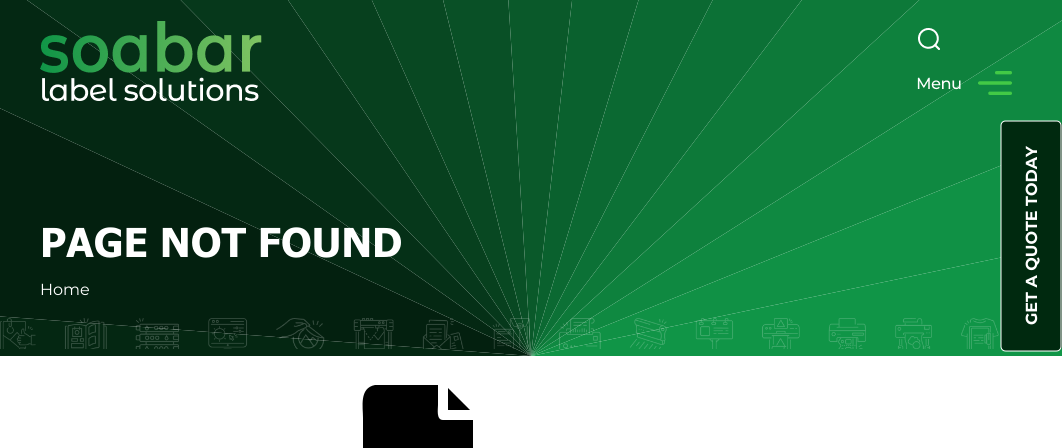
import math
import cairocffi as cairo

surface = cairo.ImageSurface(cairo.FORMAT_RGB24, 1062, 448)
cr = cairo.Context(surface)
options = cairo.FontOptions()
options.set_hint_metrics(cairo.HINT_METRICS_OFF)
options.set_hint_style(cairo.HINT_STYLE_NONE)
cr.set_font_options(options)
cr.set_miter_limit(4)


def use_color(code):
    cr.set_source_rgb(*(v / 255 for v in bytes.fromhex(code[-6:])))


def picture(path, x, y, w, h):
    cr.save()
    cr.set_source_surface(cairo.ImageSurface.create_from_png(path), x, y)
    cr.rectangle(x, y, w, h)
    cr.fill()
    cr.restore()


use_color("#ffffff")
cr.paint()
picture("img4.png", 0, 0, 1062, 356)
picture("img1.png", 40, 21, 222, 80)
picture("img2.png", 918, 28, 22, 22)
picture("img3.png", 917, 71, 95, 24)
cr.select_font_face("Tahoma", cairo.FONT_SLANT_NORMAL, cairo.FONT_WEIGHT_BOLD)
cr.set_font_size(40)
use_color("#ffffff")
cr.move_to(40, 257)
cr.show_text("PAGE NOT FOUND")
cr.select_font_face("Montserrat")
cr.set_font_size(16)
cr.move_to(40, 295)
cr.show_text("Home")
picture("img5.png", 0, 318, 999, 31)
use_color("#000000")
cr.new_path()
cr.move_to(443, 420)
cr.curve_to(436, 420, 438, 409, 438, 405)
cr.line_to(438, 385)
cr.line_to(375, 385)
cr.curve_to(359, 388, 363, 407, 363, 418)
cr.line_to(363, 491)
cr.curve_to(363, 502, 359, 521, 375, 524)
cr.line_to(445, 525)
cr.curve_to(455, 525, 469, 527, 472, 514)
cr.curve_to(474, 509, 473, 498, 473, 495)
cr.line_to(473, 420)
cr.close_path()
cr.move_to(448, 388)
cr.line_to(448, 410)
cr.line_to(470, 410)
cr.close_path()
cr.fill()
use_color("#00290f")
cr.new_path()
cr.move_to(1001, 346)
cr.line_to(1001, 126)
cr.curve_to(1001, 123, 1003, 121, 1006, 121)
cr.line_to(1057, 121)
cr.curve_to(1059, 121, 1062, 123, 1062, 126)
cr.line_to(1062, 346)
cr.curve_to(1062, 349, 1059, 351, 1057, 351)
cr.line_to(1006, 351)
cr.curve_to(1003, 351, 1001, 349, 1001, 346)
cr.close_path()
cr.fill()
cr.new_path()
cr.move_to(1001, 346.5)
cr.line_to(1001, 125.5)
cr.curve_to(1001, 123, 1003, 121, 1005.5, 121)
cr.line_to(1056.5, 121)
cr.curve_to(1059, 121, 1061, 123, 1061, 125.5)
cr.line_to(1061, 346.5)
cr.curve_to(1061, 349, 1059, 351, 1056.5, 351)
cr.line_to(1005.5, 351)
cr.curve_to(1003, 351, 1001, 349, 1001, 346.5)
cr.close_path()
use_color("#ffffff")
cr.set_line_width(1)
cr.stroke()
cr.select_font_face("Montserrat", cairo.FONT_SLANT_NORMAL, cairo.FONT_WEIGHT_BOLD)
cr.save()
cr.translate(1037, 325)
cr.rotate(-90 * math.pi / 180)
cr.move_to(0, 0)
cr.show_text("GET A QUOTE TODAY")
cr.restore()
surface.write_to_png("result.png")
